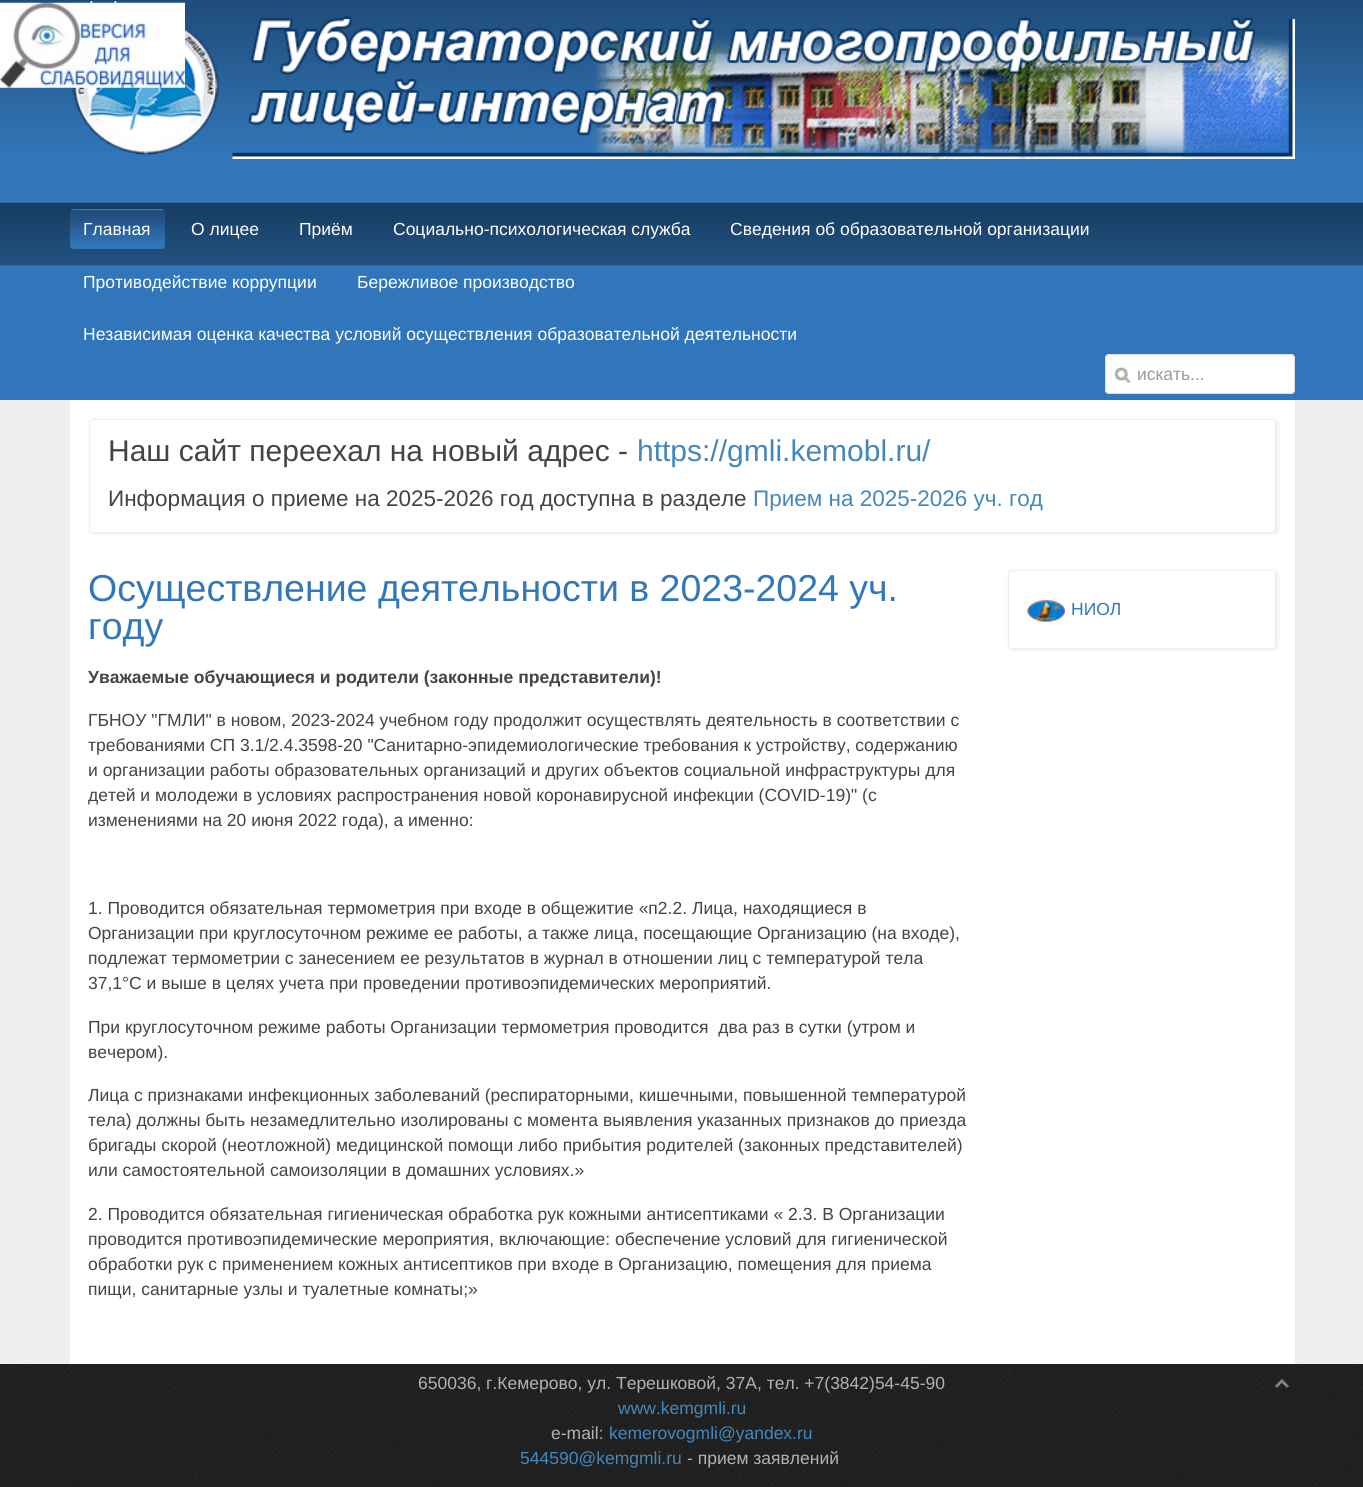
import math
import cairocffi as cairo

surface = cairo.ImageSurface(cairo.FORMAT_RGB24, 1363, 1487)
cr = cairo.Context(surface)
options = cairo.FontOptions()
options.set_hint_metrics(cairo.HINT_METRICS_OFF)
options.set_hint_style(cairo.HINT_STYLE_NONE)
cr.set_font_options(options)
cr.set_miter_limit(4)


def use_color(code):
    cr.set_source_rgb(*(v / 255 for v in bytes.fromhex(code[-6:])))


def round_rect(x, y, w, h, r):
    cr.new_sub_path()
    for i, (u, v) in enumerate([(x + w - r, y + h - r), (x + r, y + h - r), (x + r, y + r), (x + w - r, y + r)]):
        cr.arc(u, v, r, i * math.pi / 2, (i + 1) * math.pi / 2)
    cr.close_path()


def shadow(x, y, w, h, r, blur, alpha):
    cr.push_group_with_content(cairo.CONTENT_ALPHA)
    cr.set_operator(cairo.OPERATOR_SOURCE)
    for i in range(15, -16, -2):
        e = blur * i / 6
        if min(w, h) + 2 * e > 0:
            cr.set_source_rgba(0, 0, 0, alpha * math.erfc((i - 1) / 8.5) / 2)
            round_rect(x - e, y - e, w + 2 * e, h + 2 * e, max(0, min(r + e + blur * .6, min(w, h) / 2 + e)))
            cr.fill()
    cr.mask(cr.pop_group())


def picture(path, x, y, w, h):
    cr.save()
    cr.set_source_surface(cairo.ImageSurface.create_from_png(path), x, y)
    cr.rectangle(x, y, w, h)
    cr.fill()
    cr.restore()


use_color("#eeeeee")
cr.paint()
use_color("#3377bb")
cr.rectangle(0, 152, 1363, 51)
cr.fill()
picture("img1.png", 0, 0, 1363, 152)
cr.select_font_face("Liberation Sans")
cr.set_font_size(17.5)
use_color("#ffffff")
cr.move_to(89, 3)
cr.show_text(".")
cr.move_to(113, 3)
cr.show_text(".")
picture("img2.png", 72, 16, 1223, 143)
picture("img3.png", 0, 2, 185, 86)
use_color("#3175ba")
cr.rectangle(0, 265, 1363, 135)
cr.fill()
picture("img4.png", 0, 202, 1363, 64)
use_color("#3276b9")
round_rect(70, 209, 95, 40, 4)
cr.fill()
picture("img5.png", 70, 210, 95, 38)
use_color("#ffffff")
cr.move_to(83, 235)
cr.show_text("Главная")
cr.move_to(191, 235)
cr.show_text("О лицее")
cr.move_to(299, 235)
cr.show_text("Приём")
cr.move_to(393, 235)
cr.show_text("Социально-психологическая служба")
cr.move_to(730, 235)
cr.show_text("Сведения об образовательной организации")
cr.move_to(83, 288)
cr.show_text("Противодействие коррупции")
cr.move_to(357, 288)
cr.show_text("Бережливое производство")
cr.move_to(83, 340)
cr.show_text("Независимая оценка качества условий осуществления образовательной деятельности")
round_rect(1105, 354, 190, 40, 4)
cr.fill()
picture("img6.png", 1114, 367, 17, 16)
round_rect(1105.5, 354.5, 189, 39, 3.5)
use_color("#dddddd")
cr.set_line_width(1)
cr.stroke()
use_color("#999999")
cr.move_to(1137, 380)
cr.show_text("искать...")
use_color("#ffffff")
cr.rectangle(70, 400, 1225, 964)
cr.fill()
cr.save()
cr.set_fill_rule(cairo.FILL_RULE_EVEN_ODD)
cr.new_path()
cr.move_to(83, 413)
cr.line_to(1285, 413)
cr.line_to(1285, 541)
cr.line_to(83, 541)
cr.close_path()
cr.move_to(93, 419)
cr.line_to(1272, 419)
cr.curve_to(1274, 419, 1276, 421, 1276, 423)
cr.line_to(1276, 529)
cr.curve_to(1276, 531, 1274, 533, 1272, 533)
cr.line_to(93, 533)
cr.curve_to(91, 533, 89, 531, 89, 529)
cr.line_to(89, 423)
cr.curve_to(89, 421, 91, 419, 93, 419)
cr.close_path()
cr.clip()
use_color("#ececec")
shadow(90, 420, 1188, 114, 4, 2, 1)
cr.restore()
round_rect(89.5, 419.5, 1186, 113, 3.5)
use_color("#ececec")
cr.stroke()
cr.set_font_size(30)
use_color("#444444")
cr.move_to(108, 461)
cr.show_text("Наш сайт переехал на новый адрес -")
use_color("#4488bb")
cr.move_to(637, 461)
cr.show_text("https://gmli.kemobl.ru/")
cr.set_font_size(22.5)
use_color("#444444")
cr.move_to(108, 506)
cr.show_text("Информация о приеме на 2025-2026 год доступна в разделе")
use_color("#4488bb")
cr.move_to(753, 506)
cr.show_text("Прием на 2025-2026 уч. год")
cr.set_font_size(37.5)
use_color("#3377bb")
cr.move_to(88, 601)
cr.show_text("Осуществление деятельности в 2023-2024 уч.")
cr.move_to(88, 639)
cr.show_text("году")
cr.select_font_face("Liberation Sans", cairo.FONT_SLANT_NORMAL, cairo.FONT_WEIGHT_BOLD)
cr.set_font_size(17.5)
use_color("#444444")
cr.move_to(88, 683)
cr.show_text("Уважаемые обучающиеся и родители (законные представители)!")
cr.select_font_face("Liberation Sans")
cr.move_to(88, 726)
cr.show_text("ГБНОУ \"ГМЛИ\" в новом, 2023-2024 учебном году продолжит осуществлять деятельность в соответствии с")
cr.move_to(88, 751)
cr.show_text("требованиями СП 3.1/2.4.3598-20 \"Санитарно-эпидемиологические требования к устройству, содержанию")
cr.move_to(88, 776)
cr.show_text("и организации работы образовательных организаций и других объектов социальной инфраструктуры для")
cr.move_to(88, 801)
cr.show_text("детей и молодежи в условиях распространения новой коронавирусной инфекции (COVID-19)\" (с")
cr.move_to(88, 826)
cr.show_text("изменениями на 20 июня 2022 года), а именно:")
cr.move_to(88, 914)
cr.show_text("1. Проводится обязательная термометрия при входе в общежитие «п2.2. Лица, находящиеся в")
cr.move_to(88, 939)
cr.show_text("Организации при круглосуточном режиме ее работы, а также лица, посещающие Организацию (на входе),")
cr.move_to(88, 964)
cr.show_text("подлежат термометрии с занесением ее результатов в журнал в отношении лиц с температурой тела")
cr.move_to(88, 989)
cr.show_text("37,1°С и выше в целях учета при проведении противоэпидемических мероприятий.")
cr.move_to(88, 1033)
cr.show_text("При круглосуточном режиме работы Организации термометрия проводится  два раз в сутки (утром и")
cr.move_to(88, 1058)
cr.show_text("вечером).")
cr.move_to(88, 1101)
cr.show_text("Лица с признаками инфекционных заболеваний (респираторными, кишечными, повышенной температурой")
cr.move_to(88, 1126)
cr.show_text("тела) должны быть незамедлительно изолированы с момента выявления указанных признаков до приезда")
cr.move_to(88, 1151)
cr.show_text("бригады скорой (неотложной) медицинской помощи либо прибытия родителей (законных представителей)")
cr.move_to(88, 1176)
cr.show_text("или самостоятельной самоизоляции в домашних условиях.»")
cr.move_to(88, 1220)
cr.show_text("2. Проводится обязательная гигиеническая обработка рук кожными антисептиками « 2.3. В Организации")
cr.move_to(88, 1245)
cr.show_text("проводится противоэпидемические мероприятия, включающие: обеспечение условий для гигиенической")
cr.move_to(88, 1270)
cr.show_text("обработки рук с применением кожных антисептиков при входе в Организацию, помещения для приема")
cr.move_to(88, 1295)
cr.show_text("пищи, санитарные узлы и туалетные комнаты;»")
cr.save()
cr.set_fill_rule(cairo.FILL_RULE_EVEN_ODD)
cr.new_path()
cr.move_to(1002, 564)
cr.line_to(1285, 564)
cr.line_to(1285, 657)
cr.line_to(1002, 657)
cr.close_path()
cr.move_to(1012, 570)
cr.line_to(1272, 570)
cr.curve_to(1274, 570, 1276, 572, 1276, 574)
cr.line_to(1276, 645)
cr.curve_to(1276, 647, 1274, 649, 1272, 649)
cr.line_to(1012, 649)
cr.curve_to(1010, 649, 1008, 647, 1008, 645)
cr.line_to(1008, 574)
cr.curve_to(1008, 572, 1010, 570, 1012, 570)
cr.close_path()
cr.clip()
use_color("#ececec")
shadow(1009, 571, 269, 79, 4, 2, 1)
cr.restore()
round_rect(1008.5, 570.5, 267, 78, 3.5)
use_color("#ececec")
cr.stroke()
picture("img7.png", 1027, 600, 38, 22)
use_color("#3377bb")
cr.move_to(1071, 615)
cr.show_text("НИОЛ")
picture("img8.png", 0, 1364, 1363, 123)
use_color("#b2b2b2")
cr.move_to(418, 1389)
cr.show_text("650036, г.Кемерово, ул. Терешковой, 37А, тел. +7(3842)54-45-90")
use_color("#4488bb")
cr.move_to(618, 1414)
cr.show_text("www.kemgmli.ru")
use_color("#b2b2b2")
cr.move_to(551, 1439)
cr.show_text("e-mail:")
use_color("#4488bb")
cr.move_to(609, 1439)
cr.show_text("kemerovogmli@yandex.ru")
cr.move_to(520, 1464)
cr.show_text("544590@kemgmli.ru")
use_color("#b2b2b2")
cr.move_to(687, 1464)
cr.show_text("- прием заявлений")
picture("img9.png", 1275, 1379, 14, 9)
surface.write_to_png("result.png")
